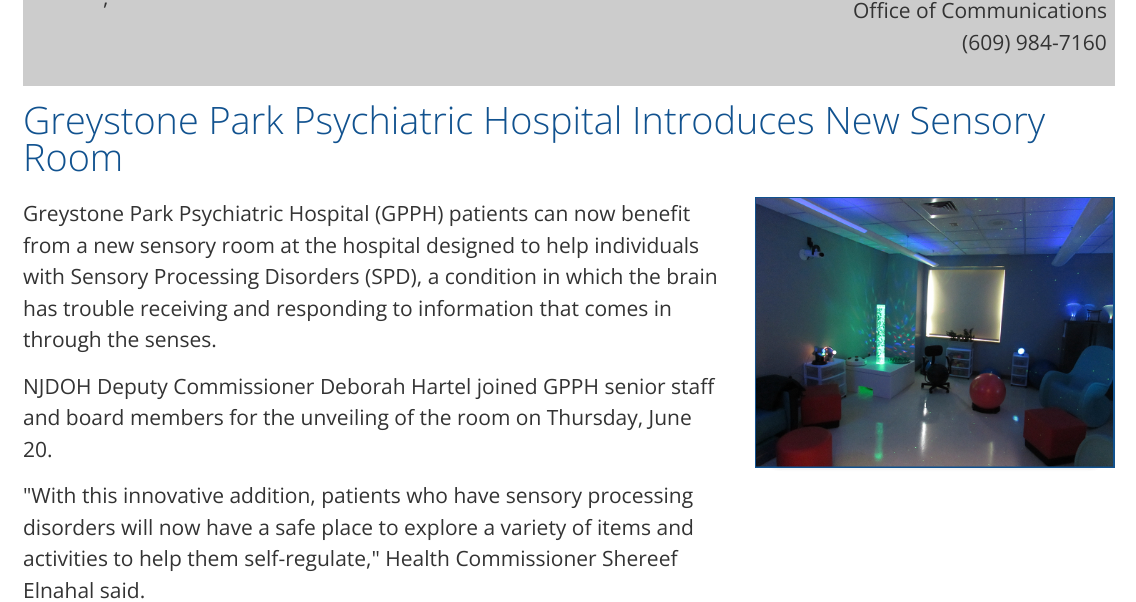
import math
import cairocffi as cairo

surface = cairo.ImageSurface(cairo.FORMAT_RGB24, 1136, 602)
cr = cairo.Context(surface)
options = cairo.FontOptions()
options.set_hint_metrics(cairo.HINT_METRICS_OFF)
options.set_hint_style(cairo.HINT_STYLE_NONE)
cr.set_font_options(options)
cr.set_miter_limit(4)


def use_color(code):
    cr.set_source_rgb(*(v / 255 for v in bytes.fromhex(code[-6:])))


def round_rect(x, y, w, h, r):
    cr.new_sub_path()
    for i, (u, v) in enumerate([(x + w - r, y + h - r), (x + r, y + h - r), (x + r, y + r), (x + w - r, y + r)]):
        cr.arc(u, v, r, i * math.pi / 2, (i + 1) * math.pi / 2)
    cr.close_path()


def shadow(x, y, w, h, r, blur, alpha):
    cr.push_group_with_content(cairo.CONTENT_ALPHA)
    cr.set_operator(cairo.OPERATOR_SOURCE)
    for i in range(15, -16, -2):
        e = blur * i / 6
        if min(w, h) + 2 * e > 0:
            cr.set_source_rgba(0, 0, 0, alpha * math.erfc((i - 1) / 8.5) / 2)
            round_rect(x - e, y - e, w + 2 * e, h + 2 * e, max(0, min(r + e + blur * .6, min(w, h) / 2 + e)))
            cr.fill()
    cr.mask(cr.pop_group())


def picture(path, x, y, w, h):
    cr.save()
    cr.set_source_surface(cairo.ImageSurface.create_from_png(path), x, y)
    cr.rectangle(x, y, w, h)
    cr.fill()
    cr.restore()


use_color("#ffffff")
cr.paint()
use_color("#cccccc")
cr.rectangle(23, 0, 1092, 86)
cr.fill()
cr.select_font_face("Open Sans")
cr.set_font_size(21)
use_color("#333333")
cr.move_to(103, 5)
cr.show_text(",")
cr.move_to(853, 18)
cr.show_text("Office of Communications")
cr.move_to(962, 50)
cr.show_text("(609) 984-7160")
cr.select_font_face("Open Sans Light")
cr.set_font_size(37.8)
use_color("#11528f")
cr.move_to(23, 134)
cr.show_text("Greystone Park Psychiatric Hospital Introduces New Sensory")
cr.move_to(23, 171)
cr.show_text("Room")
cr.select_font_face("Open Sans")
cr.set_font_size(21)
use_color("#333333")
cr.move_to(23, 221)
cr.show_text("Greystone Park Psychiatric Hospital (GPPH) patients can now benefit")
cr.move_to(23, 253)
cr.show_text("from a new sensory room at the hospital designed to help individuals")
cr.move_to(23, 284)
cr.show_text("with Sensory Processing Disorders (SPD), a condition in which the brain")
cr.move_to(23, 316)
cr.show_text("has trouble receiving and responding to information that comes in")
cr.move_to(23, 347)
cr.show_text("through the senses.")
cr.move_to(23, 394)
cr.show_text("NJDOH Deputy Commissioner Deborah Hartel joined GPPH senior staff")
cr.move_to(23, 425)
cr.show_text("and board members for the unveiling of the room on Thursday, June")
cr.move_to(23, 457)
cr.show_text("20.")
cr.move_to(23, 503)
cr.show_text("\"With this innovative addition, patients who have sensory processing")
cr.move_to(23, 535)
cr.show_text("disorders will now have a safe place to explore a variety of items and")
cr.move_to(23, 566)
cr.show_text("activities to help them self-regulate,\" Health Commissioner Shereef")
cr.move_to(23, 598)
cr.show_text("Elnahal said.")
use_color("#000000")
shadow(755, 198, 360, 272, 26, 1, 0.05)
cr.rectangle(756, 198, 358, 269)
use_color("#11528f")
cr.stroke()
picture("img1.png", 756, 198, 357, 269)
surface.write_to_png("result.png")
